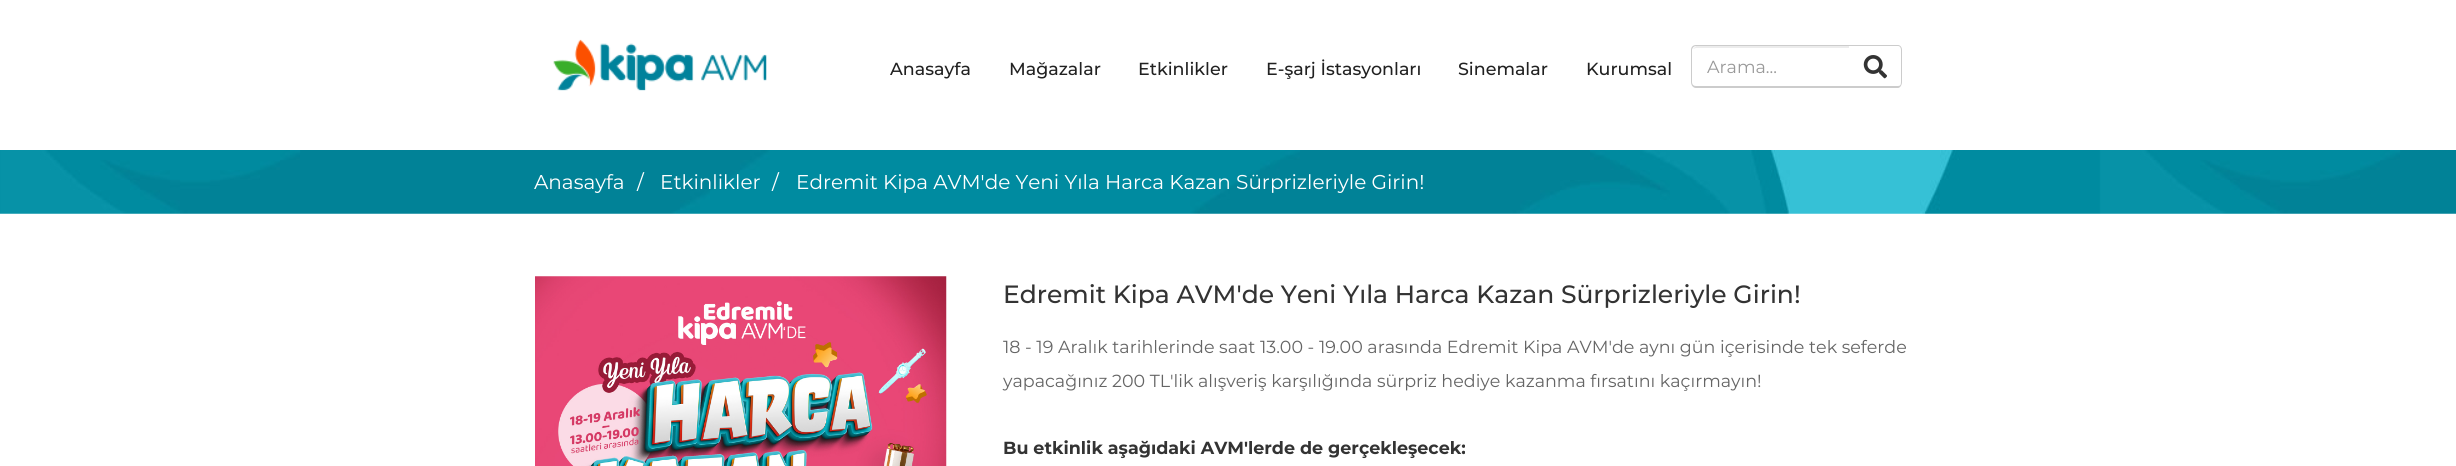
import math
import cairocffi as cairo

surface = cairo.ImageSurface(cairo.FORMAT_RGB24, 2456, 466)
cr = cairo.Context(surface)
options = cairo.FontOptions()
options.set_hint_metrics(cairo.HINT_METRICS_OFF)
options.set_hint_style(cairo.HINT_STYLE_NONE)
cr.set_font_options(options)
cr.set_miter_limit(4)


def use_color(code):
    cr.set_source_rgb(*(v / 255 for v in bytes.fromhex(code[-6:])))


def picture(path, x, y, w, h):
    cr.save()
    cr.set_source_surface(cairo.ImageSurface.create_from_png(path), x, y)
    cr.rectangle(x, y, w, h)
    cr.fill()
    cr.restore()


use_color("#ffffff")
cr.paint()
picture("img1.png", 553, 39, 214, 52)
cr.select_font_face("Montserrat Medium")
cr.set_font_size(17.5)
use_color("#212121")
cr.move_to(890, 75)
cr.show_text("Anasayfa")
cr.move_to(1009, 75)
cr.show_text("Mağazalar")
cr.move_to(1138, 75)
cr.show_text("Etkinlikler")
cr.move_to(1266, 75)
cr.show_text("E-şarj İstasyonları")
cr.move_to(1458, 75)
cr.show_text("Sinemalar")
cr.move_to(1586, 75)
cr.show_text("Kurumsal")
use_color("#ececec")
cr.new_path()
cr.move_to(1696, 48)
cr.line_to(1850, 48)
cr.line_to(1850, 46)
cr.line_to(1696, 46)
cr.line_to(1694, 48)
cr.line_to(1693, 49)
cr.close_path()
cr.fill()
use_color("#cccccc")
cr.set_fill_rule(cairo.FILL_RULE_EVEN_ODD)
cr.new_path()
cr.move_to(1696, 45)
cr.line_to(1850, 45)
cr.line_to(1850, 88)
cr.line_to(1696, 88)
cr.curve_to(1693, 88, 1691, 85, 1691, 82)
cr.line_to(1691, 50)
cr.curve_to(1691, 47, 1693, 45, 1696, 45)
cr.close_path()
cr.move_to(1696, 46)
cr.line_to(1850, 46)
cr.line_to(1850, 86)
cr.line_to(1696, 86)
cr.curve_to(1694, 86, 1692, 85, 1692, 82)
cr.line_to(1692, 50)
cr.curve_to(1692, 48, 1694, 46, 1696, 46)
cr.close_path()
cr.fill()
cr.select_font_face("Montserrat")
use_color("#999999")
cr.move_to(1707, 73)
cr.show_text("Arama...")
use_color("#ffffff")
cr.new_path()
cr.move_to(1849, 46)
cr.line_to(1897, 46)
cr.curve_to(1899, 46, 1901, 48, 1901, 50)
cr.line_to(1901, 82)
cr.curve_to(1901, 84, 1899, 86, 1897, 86)
cr.line_to(1849, 86)
cr.close_path()
cr.fill()
use_color("#cccccc")
cr.new_path()
cr.move_to(1849, 45)
cr.line_to(1898, 45)
cr.curve_to(1900, 45, 1902, 47, 1902, 50)
cr.line_to(1902, 82)
cr.curve_to(1902, 85, 1900, 88, 1898, 88)
cr.line_to(1849, 88)
cr.close_path()
cr.move_to(1849, 46)
cr.line_to(1898, 46)
cr.curve_to(1900, 46, 1901, 48, 1901, 50)
cr.line_to(1901, 82)
cr.curve_to(1901, 85, 1900, 86, 1898, 86)
cr.line_to(1849, 86)
cr.close_path()
cr.fill()
picture("img2.png", 1863, 55, 24, 24)
picture("img3.png", 0, 150, 2456, 64)
cr.set_font_size(20)
use_color("#ffffff")
cr.move_to(534, 189)
cr.show_text("Anasayfa")
cr.move_to(637, 189)
cr.show_text("/")
cr.move_to(660, 189)
cr.show_text("Etkinlikler")
cr.move_to(772, 189)
cr.show_text("/")
cr.move_to(796, 189)
cr.show_text("Edremit Kipa AVM'de Yeni Yıla Harca Kazan Sürprizleriyle Girin!")
picture("img4.png", 535, 276, 412, 190)
cr.select_font_face("Montserrat Medium")
cr.set_font_size(25)
use_color("#333333")
cr.move_to(1003, 303)
cr.show_text("Edremit Kipa AVM'de Yeni Yıla Harca Kazan Sürprizleriyle Girin!")
cr.select_font_face("Montserrat")
cr.set_font_size(17.5)
use_color("#656565")
cr.move_to(1003, 353)
cr.show_text("18 - 19 Aralık tarihlerinde saat 13.00 - 19.00 arasında Edremit Kipa AVM'de aynı gün içerisinde tek seferde")
cr.move_to(1003, 387)
cr.show_text("yapacağınız 200 TL'lik alışveriş karşılığında sürpriz hediye kazanma fırsatını kaçırmayın!")
cr.select_font_face("Montserrat", cairo.FONT_SLANT_NORMAL, cairo.FONT_WEIGHT_BOLD)
use_color("#333333")
cr.move_to(1003, 454)
cr.show_text("Bu etkinlik aşağıdaki AVM'lerde de gerçekleşecek:")
surface.write_to_png("result.png")
